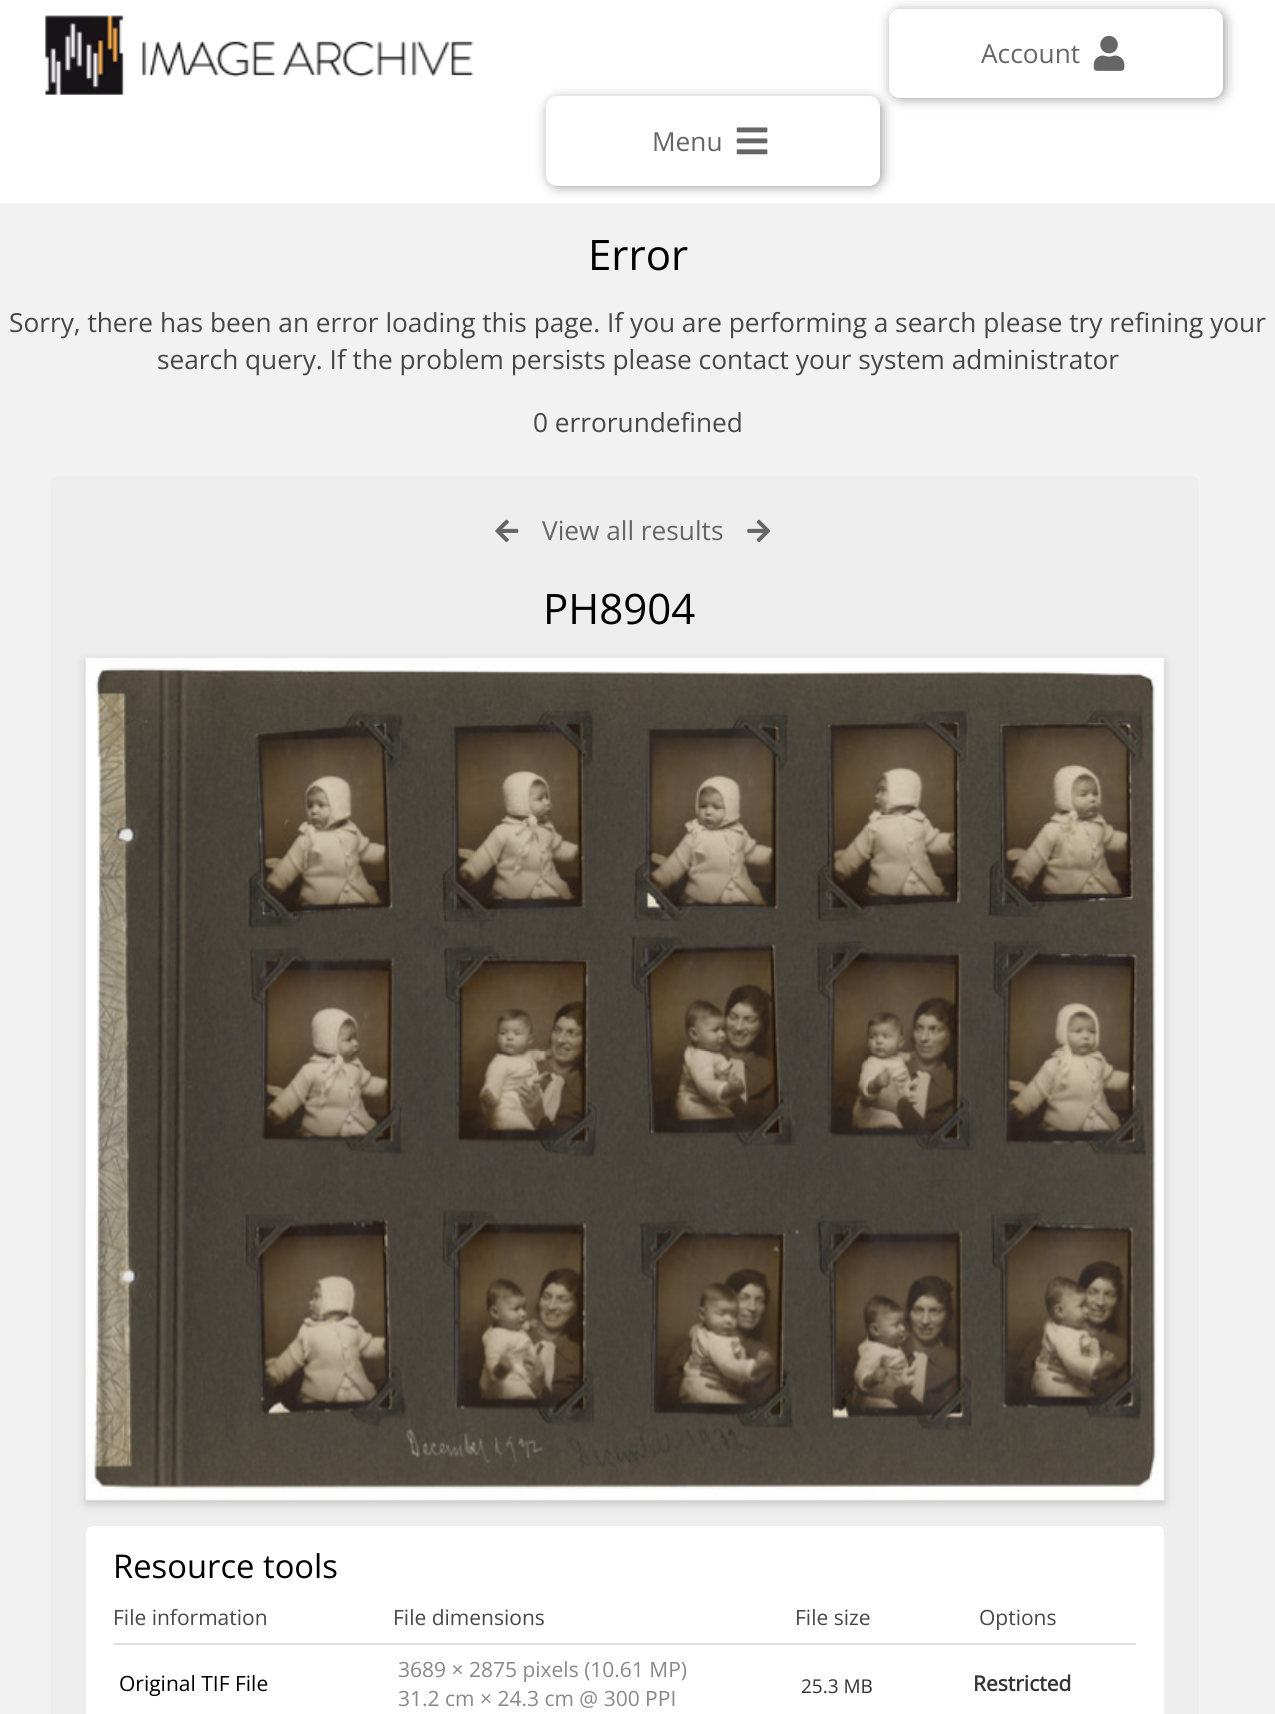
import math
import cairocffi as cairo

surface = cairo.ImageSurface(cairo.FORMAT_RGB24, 1275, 1714)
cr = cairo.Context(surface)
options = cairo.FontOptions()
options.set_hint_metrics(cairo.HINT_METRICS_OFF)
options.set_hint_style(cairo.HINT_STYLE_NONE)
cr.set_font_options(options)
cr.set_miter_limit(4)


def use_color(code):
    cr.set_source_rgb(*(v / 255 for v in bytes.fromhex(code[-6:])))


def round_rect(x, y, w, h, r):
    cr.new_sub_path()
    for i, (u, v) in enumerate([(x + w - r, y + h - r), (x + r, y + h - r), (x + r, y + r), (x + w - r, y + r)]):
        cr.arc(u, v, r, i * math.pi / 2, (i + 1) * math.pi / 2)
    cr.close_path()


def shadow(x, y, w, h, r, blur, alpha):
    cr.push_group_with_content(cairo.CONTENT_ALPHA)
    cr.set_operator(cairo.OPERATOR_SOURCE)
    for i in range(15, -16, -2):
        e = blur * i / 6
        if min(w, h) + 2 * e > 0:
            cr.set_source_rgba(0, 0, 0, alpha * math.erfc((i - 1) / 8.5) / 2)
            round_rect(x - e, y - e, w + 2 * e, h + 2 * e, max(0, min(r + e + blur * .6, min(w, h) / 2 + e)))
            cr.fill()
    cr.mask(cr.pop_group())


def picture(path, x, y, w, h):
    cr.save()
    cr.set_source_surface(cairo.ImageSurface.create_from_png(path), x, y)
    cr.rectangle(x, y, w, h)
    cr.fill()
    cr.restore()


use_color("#f2f2f2")
cr.paint()
use_color("#ffffff")
cr.rectangle(0, 0, 1275, 203)
cr.fill()
picture("img1.png", 45, 15, 429, 80)
use_color("#666666")
shadow(894, 14, 328, 82, 7, 7, 1)
use_color("#ffffff")
round_rect(889, 9, 334, 89, 11)
cr.fill()
cr.select_font_face("Open Sans")
cr.set_font_size(26.25)
use_color("#666666")
cr.move_to(981, 63)
cr.show_text("Account")
picture("img2.png", 1093, 35, 32, 36)
use_color("#666666")
shadow(551, 102, 328, 82, 7, 7, 1)
use_color("#ffffff")
round_rect(546, 96, 334, 90, 11)
cr.fill()
use_color("#666666")
cr.move_to(652, 151)
cr.show_text("Menu")
picture("img3.png", 736, 127, 32, 28)
cr.set_font_size(42)
use_color("#000000")
cr.move_to(588, 270)
cr.show_text("Error")
cr.set_font_size(26.25)
use_color("#474747")
cr.move_to(9, 332)
cr.show_text("Sorry, there has been an error loading this page. If you are performing a search please try refining your")
cr.move_to(157, 369)
cr.show_text("search query. If the problem persists please contact your system administrator")
cr.move_to(533, 432)
cr.show_text("0 errorundefined")
use_color("#eeeeee")
round_rect(51, 476, 1148, 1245, 7)
cr.fill()
picture("img4.png", 495, 519, 24, 24)
use_color("#666666")
cr.move_to(542, 540)
cr.show_text("View all results")
picture("img5.png", 747, 519, 24, 23)
cr.set_font_size(42)
use_color("#000000")
cr.move_to(543, 624)
cr.show_text("PH8904")
cr.save()
cr.set_fill_rule(cairo.FILL_RULE_EVEN_ODD)
cr.new_path()
cr.move_to(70, 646)
cr.line_to(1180, 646)
cr.line_to(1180, 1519)
cr.line_to(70, 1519)
cr.close_path()
cr.move_to(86, 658)
cr.line_to(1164, 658)
cr.line_to(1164, 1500)
cr.line_to(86, 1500)
cr.close_path()
cr.clip()
use_color("#000000")
shadow(86, 662, 1078, 841, 0, 5, 0.2)
cr.restore()
picture("img6.png", 85, 658, 1080, 843)
use_color("#ffffff")
round_rect(86, 1526, 1078, 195, 7)
cr.fill()
cr.set_font_size(32.75)
use_color("#000000")
cr.move_to(113, 1578)
cr.show_text("Resource tools")
cr.set_font_size(21)
use_color("#474747")
cr.move_to(113, 1625)
cr.show_text("File information")
cr.move_to(393, 1625)
cr.show_text("File dimensions")
cr.move_to(795, 1625)
cr.show_text("File size")
cr.move_to(979, 1625)
cr.show_text("Options")
use_color("#dddddd")
cr.rectangle(114, 1643, 1022, 2)
cr.fill()
use_color("#000000")
cr.move_to(119, 1691)
cr.show_text("Original TIF File")
use_color("#888888")
cr.move_to(398, 1677)
cr.show_text("3689 × 2875 pixels (10.61 MP)")
cr.move_to(398, 1706)
cr.show_text("31.2 cm × 24.3 cm @ 300 PPI")
cr.set_font_size(19)
use_color("#333333")
cr.move_to(801, 1693)
cr.show_text("25.3 MB")
cr.select_font_face("Open Sans", cairo.FONT_SLANT_NORMAL, cairo.FONT_WEIGHT_BOLD)
cr.set_font_size(21)
cr.move_to(973, 1691)
cr.show_text("Restricted")
surface.write_to_png("result.png")
